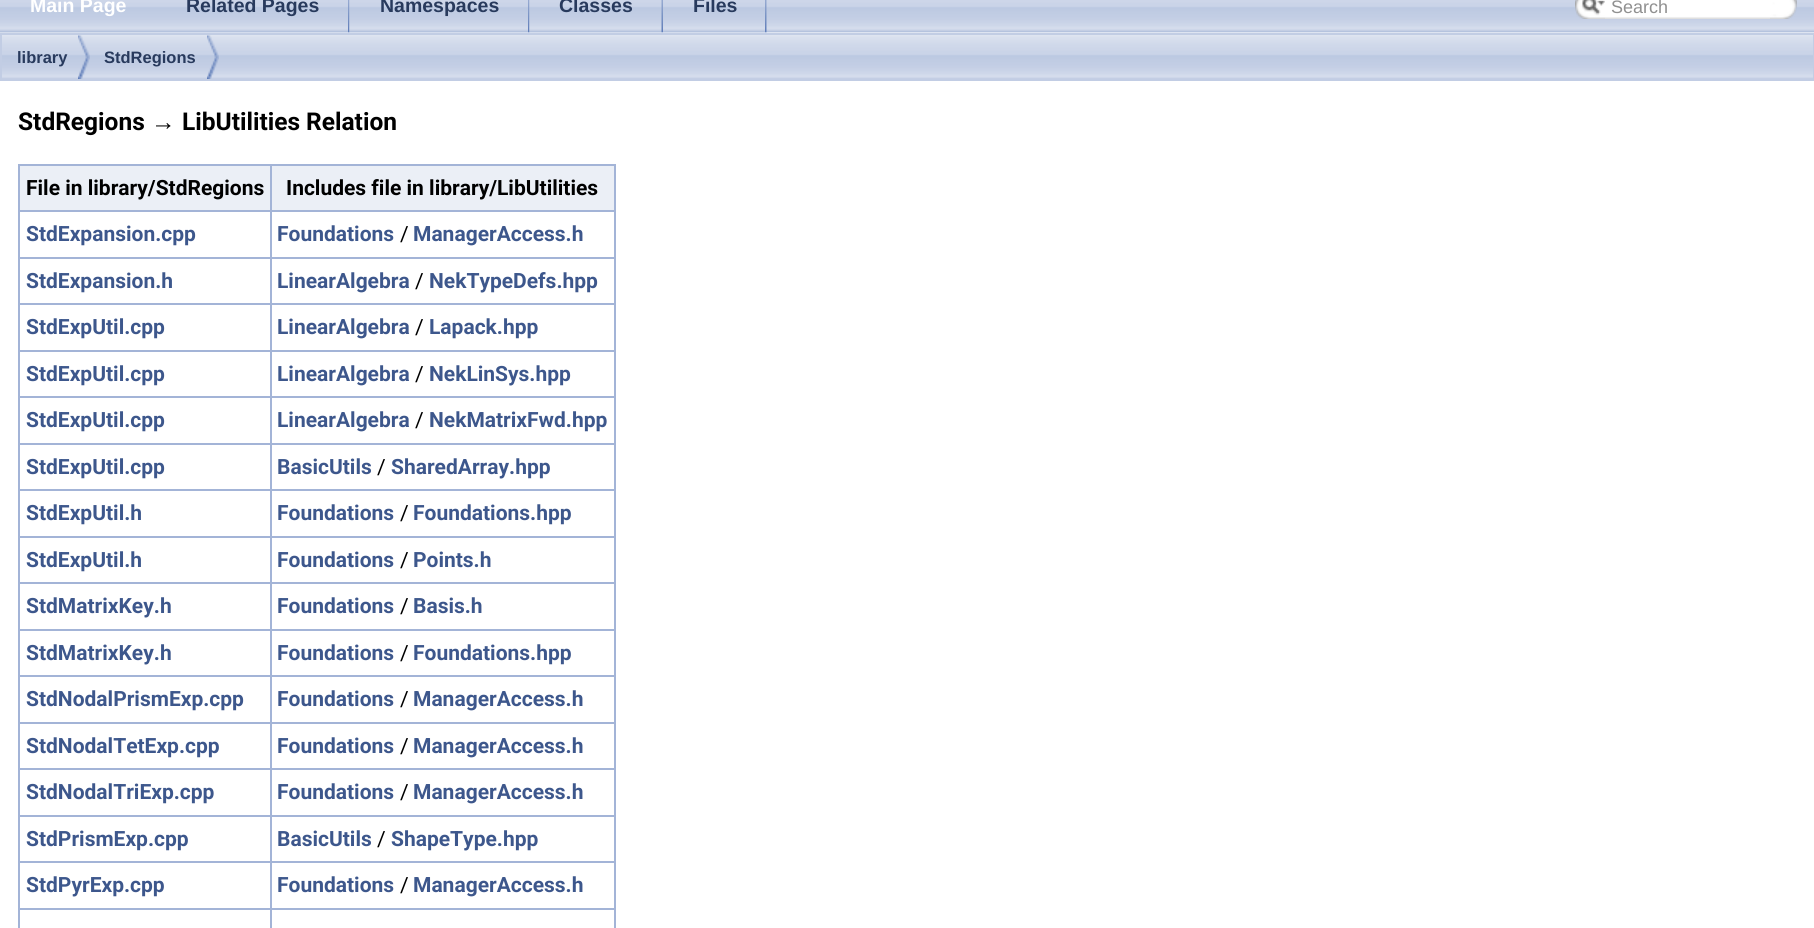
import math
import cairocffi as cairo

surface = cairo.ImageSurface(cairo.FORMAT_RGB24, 1814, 928)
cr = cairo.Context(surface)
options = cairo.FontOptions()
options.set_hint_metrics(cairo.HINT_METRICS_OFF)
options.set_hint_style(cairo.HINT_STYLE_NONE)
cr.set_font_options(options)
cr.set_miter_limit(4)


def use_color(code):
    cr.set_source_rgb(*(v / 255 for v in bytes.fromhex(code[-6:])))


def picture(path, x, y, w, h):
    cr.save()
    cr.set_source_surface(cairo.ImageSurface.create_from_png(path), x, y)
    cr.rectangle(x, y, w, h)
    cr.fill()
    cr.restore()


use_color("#ffffff")
cr.paint()
picture("img1.png", 0, 0, 1814, 33)
use_color("#c4cfe5")
cr.rectangle(0, 32, 156, 1)
cr.fill()
cr.select_font_face("Liberation Sans", cairo.FONT_SLANT_NORMAL, cairo.FONT_WEIGHT_BOLD)
cr.set_font_size(19.5)
use_color("#ffffff")
cr.move_to(30, 12)
cr.show_text("Main Page")
picture("img2.png", 156, 32, 194, 1)
picture("img3.png", 348, 0, 2, 33)
use_color("#283a5d")
cr.move_to(186, 12)
cr.show_text("Related Pages")
picture("img4.png", 349, 0, 181, 33)
picture("img3.png", 528, 0, 2, 33)
cr.move_to(380, 12)
cr.show_text("Namespaces")
picture("img5.png", 529, 0, 134, 33)
picture("img6.png", 661, 0, 2, 33)
cr.move_to(559, 12)
cr.show_text("Classes")
picture("img7.png", 663, 32, 104, 1)
picture("img3.png", 765, 0, 2, 33)
cr.move_to(693, 12)
cr.show_text("Files")
picture("img8.png", 1575, 0, 30, 19)
picture("img9.png", 1582, 0, 23, 15)
picture("img10.png", 1605, 0, 165, 19)
cr.select_font_face("Liberation Sans")
cr.set_font_size(18)
use_color("#909090")
cr.move_to(1611, 13)
cr.show_text("Search")
picture("img11.png", 1770, 0, 27, 19)
picture("img12.png", 0, 32, 1814, 47)
cr.rectangle(1, 34, 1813, 46)
use_color("#c2cde4")
cr.stroke()
picture("img13.png", 78, 35, 12, 44)
cr.select_font_face("Liberation Sans", cairo.FONT_SLANT_NORMAL, cairo.FONT_WEIGHT_BOLD)
cr.set_font_size(16.5)
use_color("#283a5d")
cr.move_to(17, 63)
cr.show_text("library")
picture("img13.png", 207, 35, 12, 44)
cr.move_to(104, 63)
cr.show_text("StdRegions")
cr.select_font_face("Roboto", cairo.FONT_SLANT_NORMAL, cairo.FONT_WEIGHT_BOLD)
cr.set_font_size(24.5)
use_color("#000000")
cr.move_to(18, 130)
cr.show_text("StdRegions")
cr.select_font_face("Liberation Sans", cairo.FONT_SLANT_NORMAL, cairo.FONT_WEIGHT_BOLD)
cr.move_to(151, 130)
cr.show_text("→")
cr.select_font_face("Roboto", cairo.FONT_SLANT_NORMAL, cairo.FONT_WEIGHT_BOLD)
cr.move_to(182, 130)
cr.show_text("LibUtilities Relation")
use_color("#a3b4d7")
cr.rectangle(18, 164, 597, 2)
cr.fill()
cr.rectangle(614, 164, 2, 764)
cr.fill()
cr.rectangle(18, 164, 2, 764)
cr.fill()
cr.rectangle(18, 908, 597, 2)
cr.fill()
cr.rectangle(18, 210, 597, 2)
cr.fill()
cr.rectangle(18, 257, 597, 2)
cr.fill()
cr.rectangle(18, 303, 597, 2)
cr.fill()
cr.rectangle(18, 350, 597, 2)
cr.fill()
cr.rectangle(18, 396, 597, 2)
cr.fill()
cr.rectangle(18, 443, 597, 2)
cr.fill()
cr.rectangle(18, 489, 597, 2)
cr.fill()
cr.rectangle(18, 536, 597, 2)
cr.fill()
cr.rectangle(18, 582, 597, 2)
cr.fill()
cr.rectangle(18, 629, 597, 2)
cr.fill()
cr.rectangle(18, 675, 597, 2)
cr.fill()
cr.rectangle(18, 722, 597, 2)
cr.fill()
cr.rectangle(18, 768, 597, 2)
cr.fill()
cr.rectangle(18, 815, 597, 2)
cr.fill()
cr.rectangle(18, 861, 597, 2)
cr.fill()
cr.rectangle(270, 164, 2, 764)
cr.fill()
use_color("#ebeff6")
cr.rectangle(20, 166, 250, 44)
cr.fill()
cr.set_font_size(21)
use_color("#000000")
cr.move_to(26, 195)
cr.show_text("File in library/StdRegions")
use_color("#ebeff6")
cr.rectangle(272, 166, 342, 44)
cr.fill()
use_color("#000000")
cr.move_to(286, 195)
cr.show_text("Includes file in library/LibUtilities")
use_color("#3d578c")
cr.move_to(26, 241)
cr.show_text("StdExpansion.cpp")
cr.move_to(277, 241)
cr.show_text("Foundations")
cr.select_font_face("Roboto")
use_color("#000000")
cr.move_to(400, 241)
cr.show_text("/")
cr.select_font_face("Roboto", cairo.FONT_SLANT_NORMAL, cairo.FONT_WEIGHT_BOLD)
use_color("#3d578c")
cr.move_to(413, 241)
cr.show_text("ManagerAccess.h")
cr.move_to(26, 288)
cr.show_text("StdExpansion.h")
cr.move_to(277, 288)
cr.show_text("LinearAlgebra")
cr.select_font_face("Roboto")
use_color("#000000")
cr.move_to(415, 288)
cr.show_text("/")
cr.select_font_face("Roboto", cairo.FONT_SLANT_NORMAL, cairo.FONT_WEIGHT_BOLD)
use_color("#3d578c")
cr.move_to(429, 288)
cr.show_text("NekTypeDefs.hpp")
cr.move_to(26, 334)
cr.show_text("StdExpUtil.cpp")
cr.move_to(277, 334)
cr.show_text("LinearAlgebra")
cr.select_font_face("Roboto")
use_color("#000000")
cr.move_to(415, 334)
cr.show_text("/")
cr.select_font_face("Roboto", cairo.FONT_SLANT_NORMAL, cairo.FONT_WEIGHT_BOLD)
use_color("#3d578c")
cr.move_to(429, 334)
cr.show_text("Lapack.hpp")
cr.move_to(26, 381)
cr.show_text("StdExpUtil.cpp")
cr.move_to(277, 381)
cr.show_text("LinearAlgebra")
cr.select_font_face("Roboto")
use_color("#000000")
cr.move_to(415, 381)
cr.show_text("/")
cr.select_font_face("Roboto", cairo.FONT_SLANT_NORMAL, cairo.FONT_WEIGHT_BOLD)
use_color("#3d578c")
cr.move_to(429, 381)
cr.show_text("NekLinSys.hpp")
cr.move_to(26, 427)
cr.show_text("StdExpUtil.cpp")
cr.move_to(277, 427)
cr.show_text("LinearAlgebra")
cr.select_font_face("Roboto")
use_color("#000000")
cr.move_to(415, 427)
cr.show_text("/")
cr.select_font_face("Roboto", cairo.FONT_SLANT_NORMAL, cairo.FONT_WEIGHT_BOLD)
use_color("#3d578c")
cr.move_to(429, 427)
cr.show_text("NekMatrixFwd.hpp")
cr.move_to(26, 474)
cr.show_text("StdExpUtil.cpp")
cr.move_to(277, 474)
cr.show_text("BasicUtils")
cr.select_font_face("Roboto")
use_color("#000000")
cr.move_to(377, 474)
cr.show_text("/")
cr.select_font_face("Roboto", cairo.FONT_SLANT_NORMAL, cairo.FONT_WEIGHT_BOLD)
use_color("#3d578c")
cr.move_to(391, 474)
cr.show_text("SharedArray.hpp")
cr.move_to(26, 520)
cr.show_text("StdExpUtil.h")
cr.move_to(277, 520)
cr.show_text("Foundations")
cr.select_font_face("Roboto")
use_color("#000000")
cr.move_to(400, 520)
cr.show_text("/")
cr.select_font_face("Roboto", cairo.FONT_SLANT_NORMAL, cairo.FONT_WEIGHT_BOLD)
use_color("#3d578c")
cr.move_to(413, 520)
cr.show_text("Foundations.hpp")
cr.move_to(26, 567)
cr.show_text("StdExpUtil.h")
cr.move_to(277, 567)
cr.show_text("Foundations")
cr.select_font_face("Roboto")
use_color("#000000")
cr.move_to(400, 567)
cr.show_text("/")
cr.select_font_face("Roboto", cairo.FONT_SLANT_NORMAL, cairo.FONT_WEIGHT_BOLD)
use_color("#3d578c")
cr.move_to(413, 567)
cr.show_text("Points.h")
cr.move_to(26, 613)
cr.show_text("StdMatrixKey.h")
cr.move_to(277, 613)
cr.show_text("Foundations")
cr.select_font_face("Roboto")
use_color("#000000")
cr.move_to(400, 613)
cr.show_text("/")
cr.select_font_face("Roboto", cairo.FONT_SLANT_NORMAL, cairo.FONT_WEIGHT_BOLD)
use_color("#3d578c")
cr.move_to(413, 613)
cr.show_text("Basis.h")
cr.move_to(26, 660)
cr.show_text("StdMatrixKey.h")
cr.move_to(277, 660)
cr.show_text("Foundations")
cr.select_font_face("Roboto")
use_color("#000000")
cr.move_to(400, 660)
cr.show_text("/")
cr.select_font_face("Roboto", cairo.FONT_SLANT_NORMAL, cairo.FONT_WEIGHT_BOLD)
use_color("#3d578c")
cr.move_to(413, 660)
cr.show_text("Foundations.hpp")
cr.move_to(26, 706)
cr.show_text("StdNodalPrismExp.cpp")
cr.move_to(277, 706)
cr.show_text("Foundations")
cr.select_font_face("Roboto")
use_color("#000000")
cr.move_to(400, 706)
cr.show_text("/")
cr.select_font_face("Roboto", cairo.FONT_SLANT_NORMAL, cairo.FONT_WEIGHT_BOLD)
use_color("#3d578c")
cr.move_to(413, 706)
cr.show_text("ManagerAccess.h")
cr.move_to(26, 753)
cr.show_text("StdNodalTetExp.cpp")
cr.move_to(277, 753)
cr.show_text("Foundations")
cr.select_font_face("Roboto")
use_color("#000000")
cr.move_to(400, 753)
cr.show_text("/")
cr.select_font_face("Roboto", cairo.FONT_SLANT_NORMAL, cairo.FONT_WEIGHT_BOLD)
use_color("#3d578c")
cr.move_to(413, 753)
cr.show_text("ManagerAccess.h")
cr.move_to(26, 799)
cr.show_text("StdNodalTriExp.cpp")
cr.move_to(277, 799)
cr.show_text("Foundations")
cr.select_font_face("Roboto")
use_color("#000000")
cr.move_to(400, 799)
cr.show_text("/")
cr.select_font_face("Roboto", cairo.FONT_SLANT_NORMAL, cairo.FONT_WEIGHT_BOLD)
use_color("#3d578c")
cr.move_to(413, 799)
cr.show_text("ManagerAccess.h")
cr.move_to(26, 846)
cr.show_text("StdPrismExp.cpp")
cr.move_to(277, 846)
cr.show_text("BasicUtils")
cr.select_font_face("Roboto")
use_color("#000000")
cr.move_to(377, 846)
cr.show_text("/")
cr.select_font_face("Roboto", cairo.FONT_SLANT_NORMAL, cairo.FONT_WEIGHT_BOLD)
use_color("#3d578c")
cr.move_to(391, 846)
cr.show_text("ShapeType.hpp")
cr.move_to(26, 892)
cr.show_text("StdPyrExp.cpp")
cr.move_to(277, 892)
cr.show_text("Foundations")
cr.select_font_face("Roboto")
use_color("#000000")
cr.move_to(400, 892)
cr.show_text("/")
cr.select_font_face("Roboto", cairo.FONT_SLANT_NORMAL, cairo.FONT_WEIGHT_BOLD)
use_color("#3d578c")
cr.move_to(413, 892)
cr.show_text("ManagerAccess.h")
surface.write_to_png("result.png")
